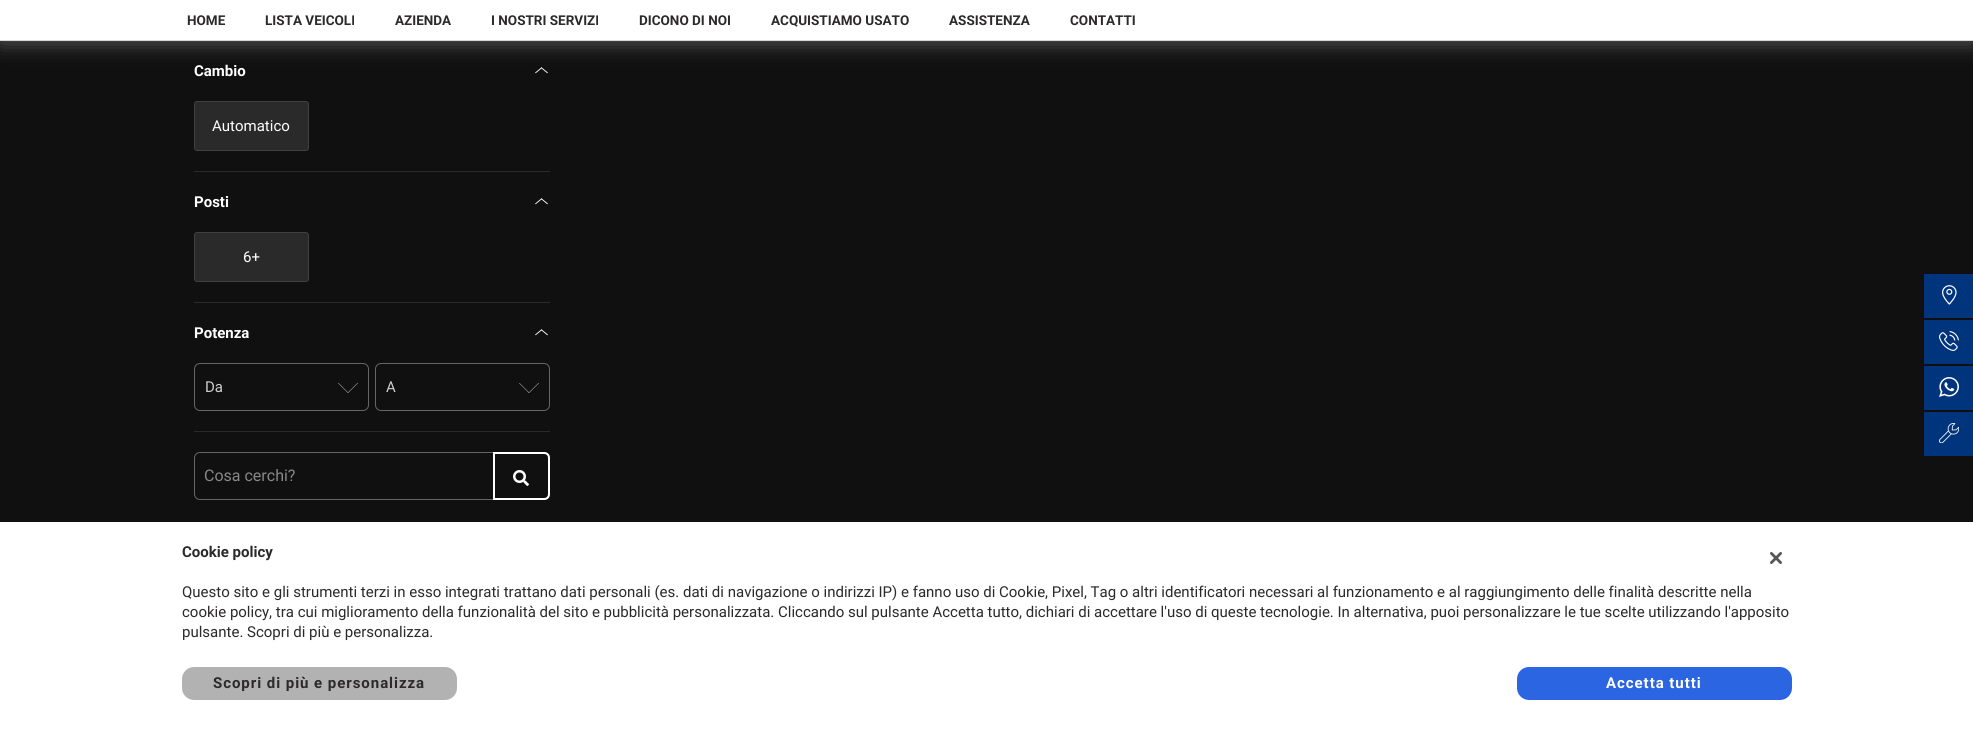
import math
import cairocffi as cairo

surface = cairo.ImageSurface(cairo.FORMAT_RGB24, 1973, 730)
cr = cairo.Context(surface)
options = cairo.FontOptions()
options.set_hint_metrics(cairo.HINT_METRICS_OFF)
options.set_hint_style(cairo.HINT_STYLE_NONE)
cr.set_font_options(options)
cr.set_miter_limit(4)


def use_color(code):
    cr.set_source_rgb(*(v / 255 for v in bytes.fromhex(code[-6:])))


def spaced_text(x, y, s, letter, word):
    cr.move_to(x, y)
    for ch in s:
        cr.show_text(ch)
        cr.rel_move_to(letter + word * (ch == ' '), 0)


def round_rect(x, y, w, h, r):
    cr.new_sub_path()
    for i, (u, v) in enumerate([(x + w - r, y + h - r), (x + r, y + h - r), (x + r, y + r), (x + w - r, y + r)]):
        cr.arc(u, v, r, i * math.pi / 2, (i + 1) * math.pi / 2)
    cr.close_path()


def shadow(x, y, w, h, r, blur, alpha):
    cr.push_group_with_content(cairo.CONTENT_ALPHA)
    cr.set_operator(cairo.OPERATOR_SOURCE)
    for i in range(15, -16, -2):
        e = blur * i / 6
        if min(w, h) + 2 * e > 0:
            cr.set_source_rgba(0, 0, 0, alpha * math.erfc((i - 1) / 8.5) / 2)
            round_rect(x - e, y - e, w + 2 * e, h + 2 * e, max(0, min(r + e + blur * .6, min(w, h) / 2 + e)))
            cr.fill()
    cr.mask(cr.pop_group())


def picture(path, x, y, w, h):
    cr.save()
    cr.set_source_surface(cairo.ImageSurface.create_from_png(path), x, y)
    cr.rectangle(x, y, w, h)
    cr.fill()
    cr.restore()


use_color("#101010")
cr.paint()
picture("img1.png", 535, 67, 13, 7)
use_color("#ffffff")
shadow(0, 3, 1973, 41, 0, 10, 0.3)
use_color("#ffffff")
cr.rectangle(0, 0, 1973, 40)
cr.fill()
use_color("#d6d6d6")
cr.rectangle(0, 40, 1973, 1)
cr.fill()
cr.select_font_face("Roboto", cairo.FONT_SLANT_NORMAL, cairo.FONT_WEIGHT_BOLD)
cr.set_font_size(13.5)
use_color("#2b2929")
cr.move_to(187, 25)
cr.show_text("HOME")
cr.move_to(265, 25)
cr.show_text("LISTA VEICOLI")
cr.move_to(395, 25)
cr.show_text("AZIENDA")
cr.move_to(491, 25)
cr.show_text("I NOSTRI SERVIZI")
cr.move_to(639, 25)
cr.show_text("DICONO DI NOI")
cr.move_to(771, 25)
cr.show_text("ACQUISTIAMO USATO")
cr.move_to(949, 25)
cr.show_text("ASSISTENZA")
cr.move_to(1070, 25)
cr.show_text("CONTATTI")
cr.set_font_size(15)
use_color("#ffffff")
cr.move_to(194, 76)
cr.show_text("Cambio")
use_color("#2a2a2a")
cr.rectangle(194, 171, 356, 1)
cr.fill()
round_rect(195, 102, 113, 48, 2)
cr.fill()
round_rect(194.5, 101.5, 114, 49, 2.5)
cr.set_source_rgba(1, 1, 1, 0.2)
cr.set_line_width(1)
cr.stroke()
cr.select_font_face("Roboto")
use_color("#ffffff")
cr.move_to(212, 131)
cr.show_text("Automatico")
cr.select_font_face("Roboto", cairo.FONT_SLANT_NORMAL, cairo.FONT_WEIGHT_BOLD)
cr.move_to(194, 207)
cr.show_text("Posti")
picture("img1.png", 535, 198, 13, 7)
use_color("#2a2a2a")
cr.rectangle(194, 302, 356, 1)
cr.fill()
round_rect(195, 233, 113, 48, 2)
cr.fill()
round_rect(194.5, 232.5, 114, 49, 2.5)
cr.set_source_rgba(1, 1, 1, 0.2)
cr.stroke()
cr.select_font_face("Roboto")
use_color("#ffffff")
cr.move_to(243, 262)
cr.show_text("6+")
cr.select_font_face("Roboto", cairo.FONT_SLANT_NORMAL, cairo.FONT_WEIGHT_BOLD)
cr.move_to(194, 338)
cr.show_text("Potenza")
picture("img1.png", 535, 329, 13, 7)
use_color("#2a2a2a")
cr.rectangle(194, 431, 356, 1)
cr.fill()
use_color("#ffffff")
cr.new_path()
cr.move_to(348, 393)
cr.line_to(338, 383)
cr.line_to(338.5, 383)
cr.line_to(348, 392.5)
cr.line_to(357.5, 383)
cr.line_to(358, 383)
cr.close_path()
cr.fill()
round_rect(194.5, 363.5, 174, 47, 5.5)
use_color("#666666")
cr.stroke()
cr.select_font_face("Roboto")
use_color("#cfcfcf")
cr.move_to(205, 392)
cr.show_text("Da")
use_color("#ffffff")
cr.new_path()
cr.move_to(529, 393)
cr.line_to(519, 383)
cr.line_to(519.5, 383)
cr.line_to(529, 392.5)
cr.line_to(538.5, 383)
cr.line_to(539, 383)
cr.close_path()
cr.fill()
round_rect(375.5, 363.5, 174, 47, 5.5)
use_color("#666666")
cr.stroke()
use_color("#cfcfcf")
cr.move_to(386, 392)
cr.show_text("A")
round_rect(194.5, 452.5, 355, 47, 5.5)
use_color("#666666")
cr.stroke()
cr.set_font_size(16)
use_color("#888888")
cr.move_to(204, 481)
cr.show_text("Cosa cerchi?")
cr.new_path()
cr.move_to(494, 453)
cr.line_to(544, 453)
cr.curve_to(547, 453, 549, 455, 549, 458)
cr.line_to(549, 494)
cr.curve_to(549, 497, 547, 499, 544, 499)
cr.line_to(494, 499)
cr.close_path()
use_color("#ffffff")
cr.set_line_width(2)
cr.stroke()
picture("img2.png", 513, 470, 16, 16)
use_color("#00347c")
cr.rectangle(1924, 274, 49, 44)
cr.fill()
picture("img3.png", 1942, 285, 15, 20)
cr.rectangle(1924, 320, 49, 44)
cr.fill()
picture("img4.png", 1939, 331, 20, 20)
cr.rectangle(1924, 366, 49, 44)
cr.fill()
picture("img5.png", 1939, 377, 20, 20)
cr.rectangle(1924, 412, 49, 44)
cr.fill()
picture("img6.png", 1939, 423, 20, 20)
use_color("#ffffff")
cr.rectangle(0, 522, 1973, 208)
cr.fill()
cr.select_font_face("Roboto", cairo.FONT_SLANT_NORMAL, cairo.FONT_WEIGHT_BOLD)
cr.set_font_size(15)
use_color("#2b2929")
cr.move_to(182, 557)
cr.show_text("Cookie policy")
cr.select_font_face("Roboto")
cr.move_to(182, 597)
cr.show_text("Questo sito e gli strumenti terzi in esso integrati trattano dati personali (es. dati di navigazione o indirizzi IP) e fanno uso di Cookie, Pixel, Tag o altri identificatori necessari al funzionamento e al raggiungimento delle finalità descritte nella")
cr.move_to(182, 617)
cr.show_text("cookie policy, tra cui miglioramento della funzionalità del sito e pubblicità personalizzata. Cliccando sul pulsante Accetta tutto, dichiari di accettare l'uso di queste tecnologie. In alternativa, puoi personalizzare le tue scelte utilizzando l'apposito")
cr.move_to(182, 637)
cr.show_text("pulsante. Scopri di più e personalizza.")
use_color("#b2b2b2")
round_rect(183, 668, 273, 31, 11)
cr.fill_preserve()
cr.stroke()
cr.select_font_face("Roboto", cairo.FONT_SLANT_NORMAL, cairo.FONT_WEIGHT_BOLD)
use_color("#2b2929")
spaced_text(213, 688, "Scopri di più e personalizza", 0.95, 0)
use_color("#2c65e1")
round_rect(1518, 668, 273, 31, 11)
cr.fill_preserve()
cr.stroke()
use_color("#ffffff")
spaced_text(1606, 688, "Accetta tutti", 0.95, 0)
picture("img7.png", 1770, 552, 12, 12)
surface.write_to_png("result.png")
